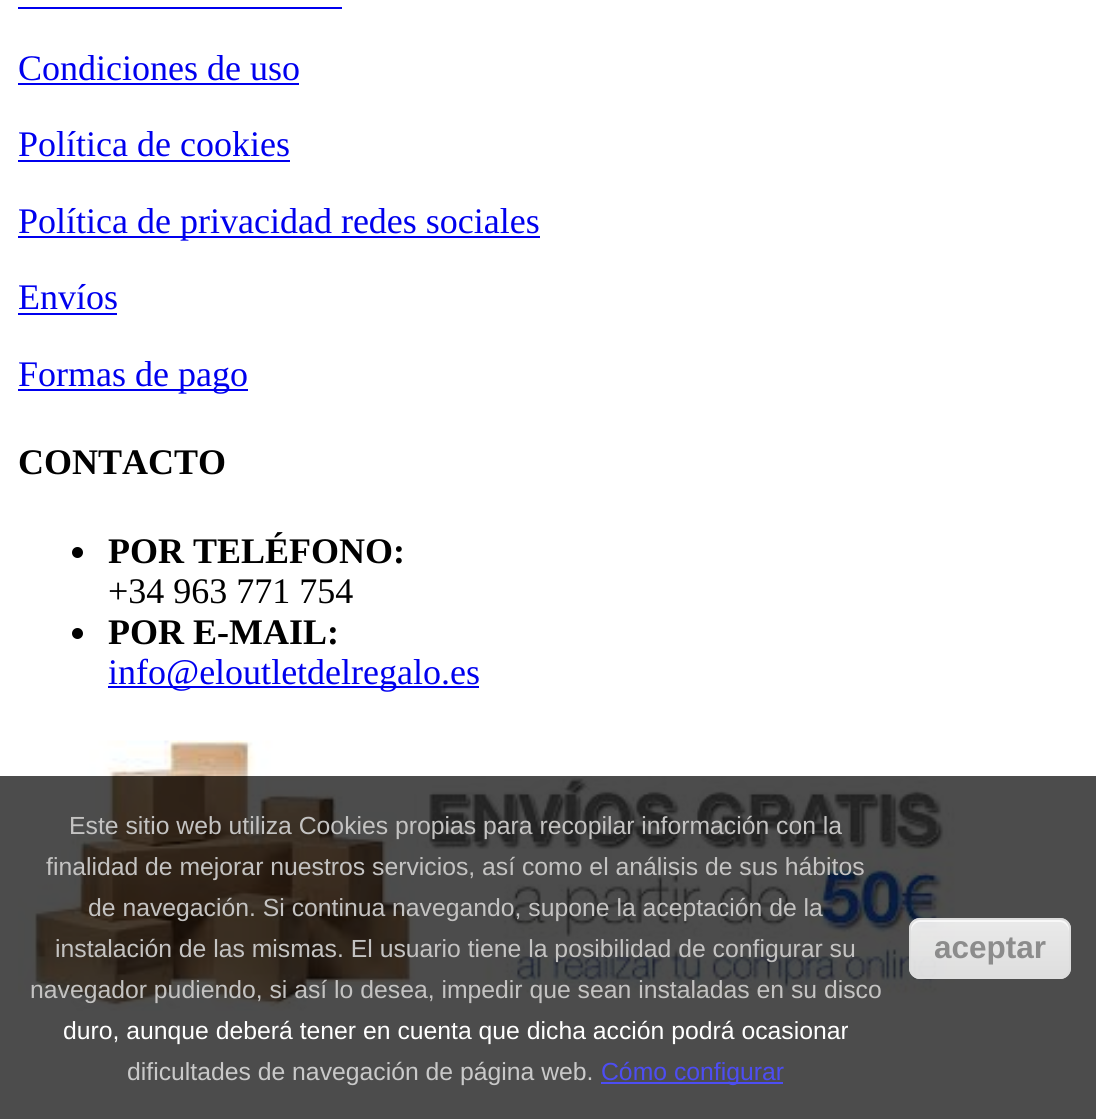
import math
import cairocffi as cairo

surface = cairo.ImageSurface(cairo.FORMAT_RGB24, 1096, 1119)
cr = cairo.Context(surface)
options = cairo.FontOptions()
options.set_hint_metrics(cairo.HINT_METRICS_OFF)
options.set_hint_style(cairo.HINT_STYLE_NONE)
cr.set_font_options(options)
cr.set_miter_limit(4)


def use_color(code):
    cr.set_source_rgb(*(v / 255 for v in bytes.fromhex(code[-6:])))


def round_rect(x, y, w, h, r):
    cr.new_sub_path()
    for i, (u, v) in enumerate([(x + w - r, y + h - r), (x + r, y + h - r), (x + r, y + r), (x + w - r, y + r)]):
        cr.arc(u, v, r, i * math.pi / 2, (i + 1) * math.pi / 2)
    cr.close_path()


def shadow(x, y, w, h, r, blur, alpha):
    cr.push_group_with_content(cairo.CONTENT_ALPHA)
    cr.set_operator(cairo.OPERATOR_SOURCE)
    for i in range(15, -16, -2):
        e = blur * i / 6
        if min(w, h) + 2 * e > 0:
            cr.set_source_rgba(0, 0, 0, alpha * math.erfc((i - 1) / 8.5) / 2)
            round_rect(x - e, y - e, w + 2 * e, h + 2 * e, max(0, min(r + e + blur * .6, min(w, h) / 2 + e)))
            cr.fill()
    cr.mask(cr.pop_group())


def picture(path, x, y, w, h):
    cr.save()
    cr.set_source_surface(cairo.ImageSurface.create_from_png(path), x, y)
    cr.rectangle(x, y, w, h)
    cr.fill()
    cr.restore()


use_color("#ffffff")
cr.paint()
use_color("#0000ee")
cr.rectangle(18, 7, 324, 2)
cr.fill()
cr.select_font_face("Liberation Serif")
cr.set_font_size(36)
cr.move_to(18, 80)
cr.show_text("Condiciones de uso")
cr.rectangle(18, 83, 281, 2)
cr.fill()
cr.move_to(18, 156)
cr.show_text("Política de cookies")
cr.rectangle(18, 160, 272, 2)
cr.fill()
cr.rectangle(18, 236, 522, 2)
cr.fill()
cr.move_to(18, 233)
cr.show_text("Política de privacidad redes sociales")
cr.move_to(18, 309)
cr.show_text("Envíos")
cr.rectangle(18, 313, 99, 2)
cr.fill()
cr.rectangle(18, 389, 230, 2)
cr.fill()
cr.move_to(18, 386)
cr.show_text("Formas de pago")
cr.select_font_face("Liberation Serif", cairo.FONT_SLANT_NORMAL, cairo.FONT_WEIGHT_BOLD)
use_color("#000000")
cr.move_to(18, 474)
cr.show_text("CONTACTO")
cr.new_path()
cr.arc(77.5, 552.5, 5.5, 0, 2 * math.pi)
cr.fill()
cr.move_to(108, 563)
cr.show_text("POR TELÉFONO:")
cr.select_font_face("Liberation Serif")
cr.move_to(108, 603)
cr.show_text("+34 963 771 754")
cr.new_path()
cr.arc(77.5, 633.5, 5.5, 0, 2 * math.pi)
cr.fill()
cr.select_font_face("Liberation Serif", cairo.FONT_SLANT_NORMAL, cairo.FONT_WEIGHT_BOLD)
cr.move_to(108, 644)
cr.show_text("POR E-MAIL:")
use_color("#0000ee")
cr.rectangle(108, 686, 371, 2)
cr.fill()
cr.select_font_face("Liberation Serif")
cr.move_to(108, 684)
cr.show_text("info@eloutletdelregalo.es")
picture("img1.png", 18, 740, 937, 271)
cr.save()
cr.set_fill_rule(cairo.FILL_RULE_EVEN_ODD)
cr.new_path()
cr.move_to(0, 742)
cr.line_to(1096, 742)
cr.line_to(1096, 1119)
cr.line_to(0, 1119)
cr.close_path()
cr.move_to(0, 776)
cr.line_to(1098, 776)
cr.line_to(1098, 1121)
cr.line_to(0, 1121)
cr.close_path()
cr.clip()
use_color("#ffffff")
shadow(0, 776, 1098, 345, 0, 11, 0.7)
cr.restore()
cr.set_source_rgba(0, 0, 0, 0.7)
cr.rectangle(0, 776, 1096, 343)
cr.fill()
cr.select_font_face("Liberation Sans")
cr.set_font_size(24.75)
use_color("#c4c3c2")
cr.move_to(69, 834)
cr.show_text("Este sitio web utiliza Cookies propias para recopilar información con la")
cr.move_to(46, 875)
cr.show_text("finalidad de mejorar nuestros servicios, así como el análisis de sus hábitos")
cr.move_to(88, 916)
cr.show_text("de navegación. Si continua navegando, supone la aceptación de la")
cr.move_to(55, 957)
cr.show_text("instalación de las mismas. El usuario tiene la posibilidad de configurar su")
cr.move_to(30, 998)
cr.show_text("navegador pudiendo, si así lo desea, impedir que sean instaladas en su disco")
use_color("#ffffff")
cr.move_to(63, 1039)
cr.show_text("duro, aunque deberá tener en cuenta que dicha acción podrá ocasionar")
use_color("#c9c9c9")
cr.move_to(127, 1080)
cr.show_text("dificultades de navegación de página web.")
use_color("#4d4df3")
cr.rectangle(601, 1082, 182, 2)
cr.fill()
cr.move_to(601, 1080)
cr.show_text("Cómo configurar")
cr.set_source_rgba(0.976, 0.976, 0.976, 0.7)
round_rect(909, 918, 162, 61, 11)
cr.fill()
cr.save()
round_rect(909, 918, 162, 61, 11)
cr.clip()
gradient = cairo.LinearGradient(911, 864, 911, 920)
gradient.add_color_stop_rgba(0.05, 0.976, 0.976, 0.976, 0.7)
gradient.add_color_stop_rgba(1, 0.914, 0.914, 0.914, 0.7)
cr.set_source(gradient)
cr.rectangle(909, 918, 162, 2)
cr.fill()
gradient = cairo.LinearGradient(911, 920, 911, 977)
gradient.add_color_stop_rgba(0.05, 0.976, 0.976, 0.976, 0.7)
gradient.add_color_stop_rgba(1, 0.914, 0.914, 0.914, 0.7)
cr.set_source(gradient)
cr.rectangle(909, 920, 162, 57)
cr.fill()
gradient = cairo.LinearGradient(911, 977, 911, 1033)
gradient.add_color_stop_rgba(0.05, 0.976, 0.976, 0.976, 0.7)
gradient.add_color_stop_rgba(1, 0.914, 0.914, 0.914, 0.7)
cr.set_source(gradient)
cr.rectangle(909, 977, 162, 2)
cr.fill()
cr.restore()
cr.set_source_rgba(1, 1, 1, 0.7)
cr.new_path()
cr.move_to(920, 922)
cr.line_to(1060, 922)
cr.curve_to(1065, 922, 1069, 927, 1069, 932)
cr.line_to(1069, 929)
cr.curve_to(1069, 924, 1065, 920, 1060, 920)
cr.line_to(920, 920)
cr.curve_to(915, 920, 911, 924, 911, 929)
cr.line_to(911, 932)
cr.curve_to(911, 927, 915, 922, 920, 922)
cr.close_path()
cr.fill()
round_rect(910, 919, 160, 59, 10)
cr.set_source_rgba(0.863, 0.863, 0.863, 0.7)
cr.stroke()
cr.select_font_face("Liberation Sans", cairo.FONT_SLANT_NORMAL, cairo.FONT_WEIGHT_BOLD)
cr.set_font_size(31.5)
use_color("#8c8c8c")
cr.move_to(934, 958)
cr.show_text("aceptar")
surface.write_to_png("result.png")
